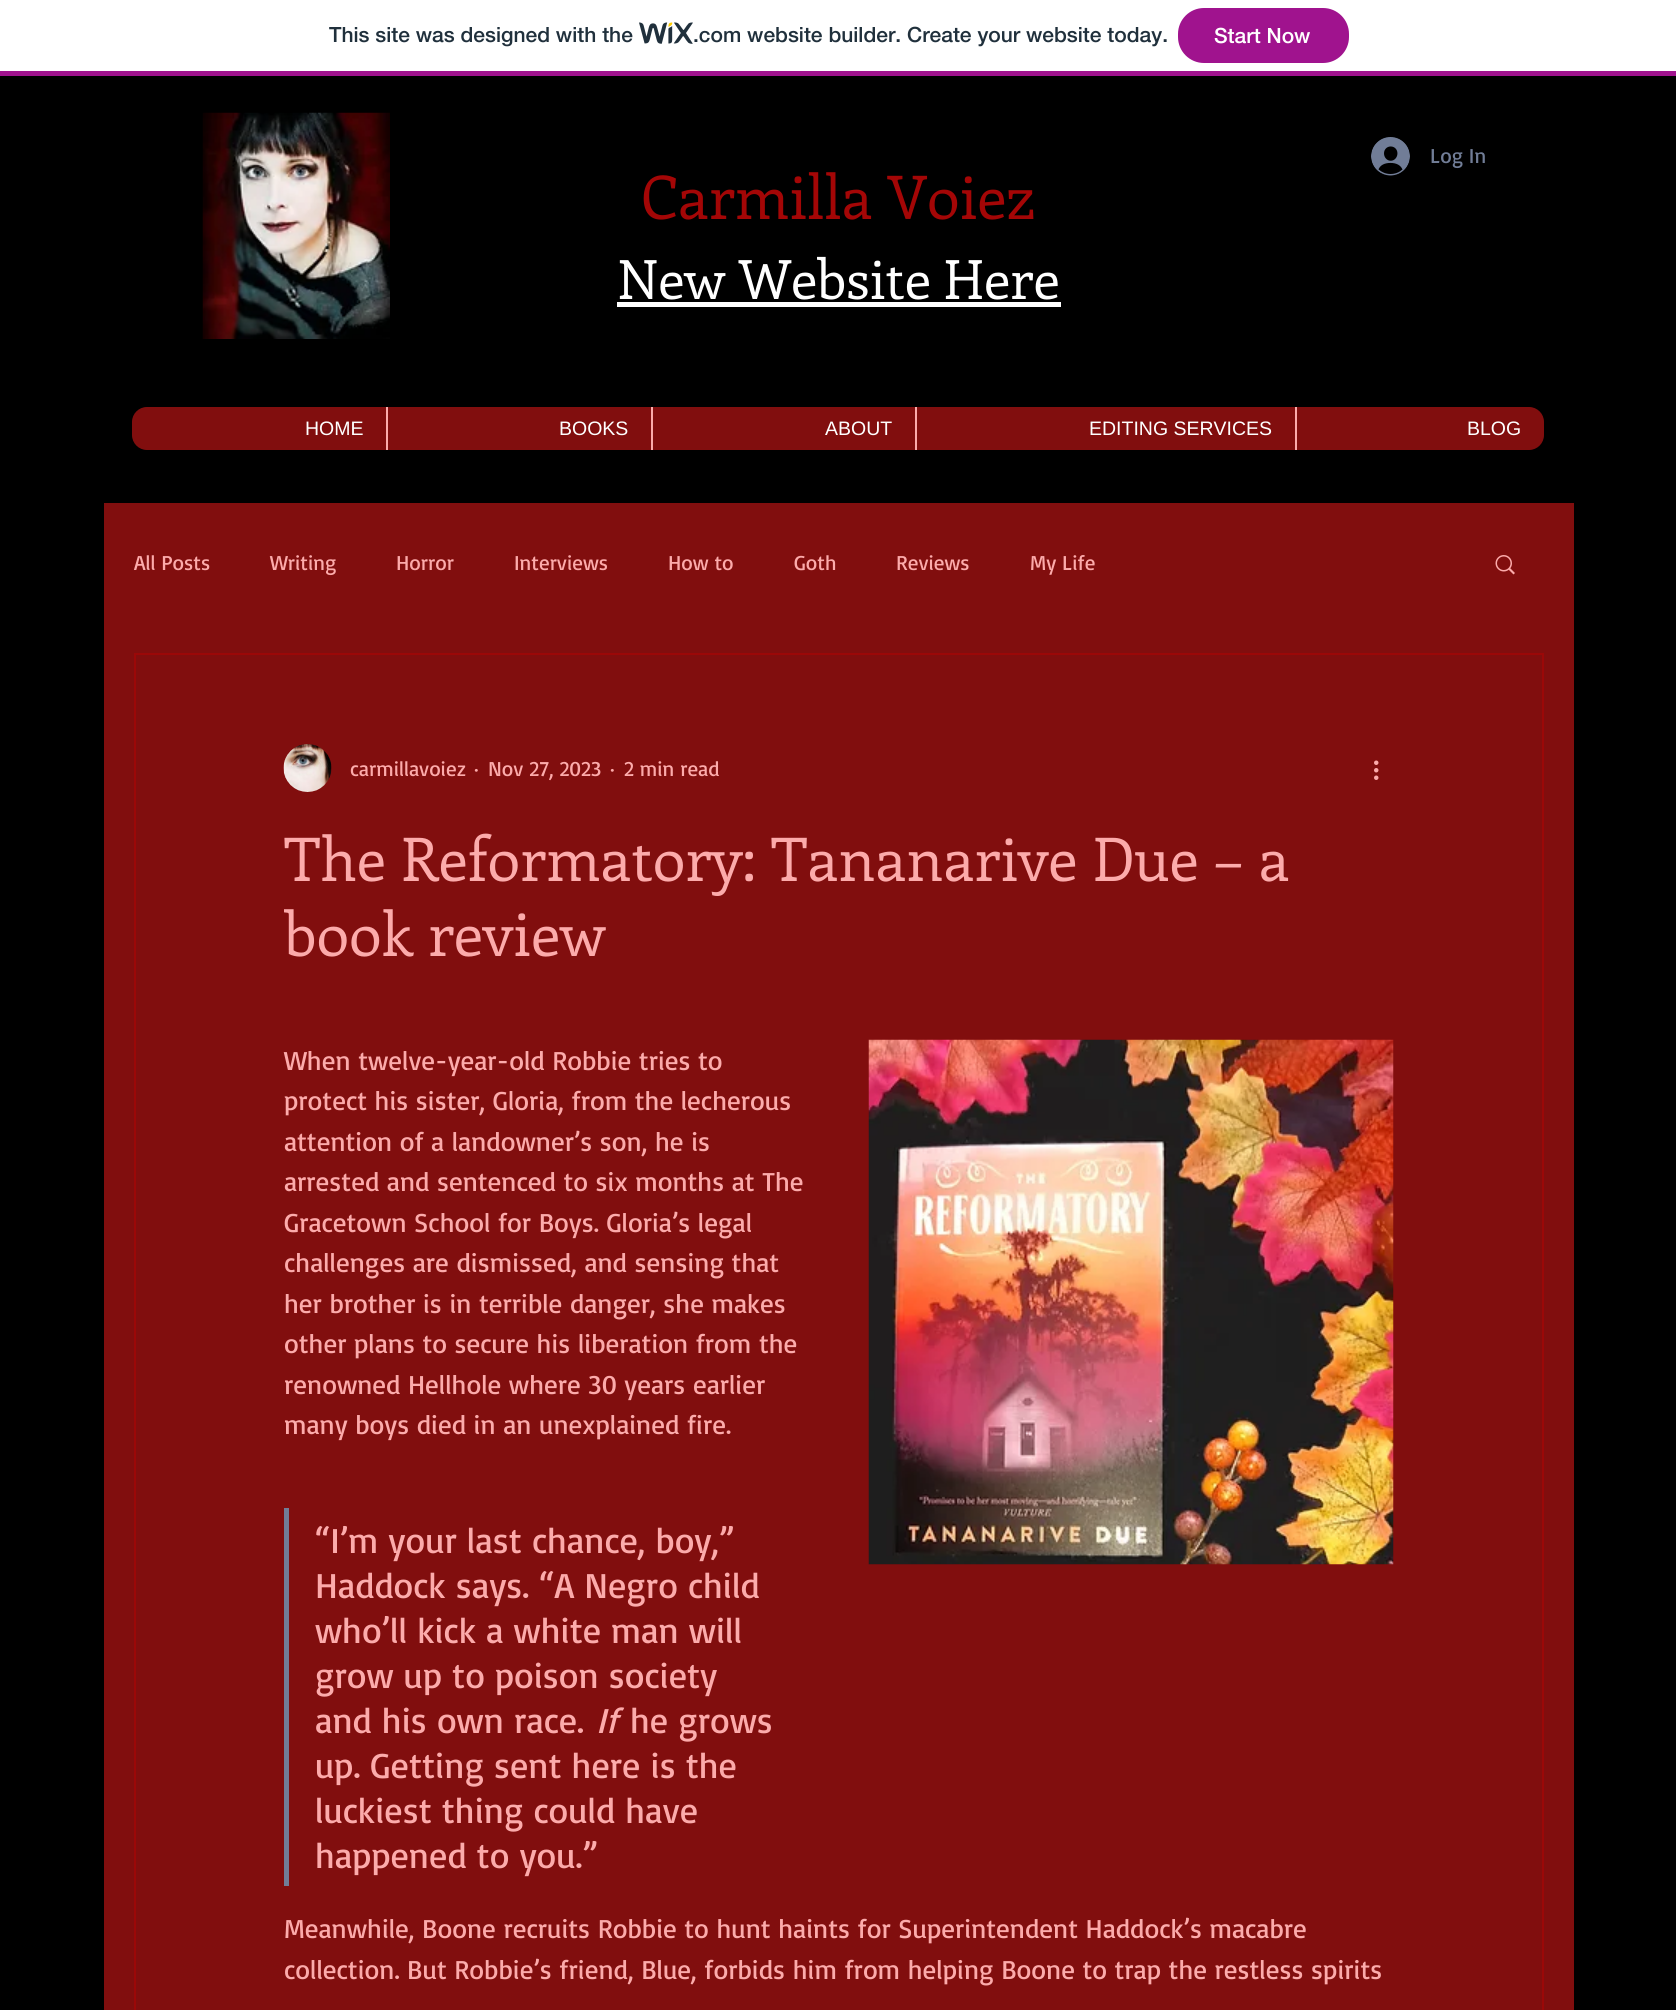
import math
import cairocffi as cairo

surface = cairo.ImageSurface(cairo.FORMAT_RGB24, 1676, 2010)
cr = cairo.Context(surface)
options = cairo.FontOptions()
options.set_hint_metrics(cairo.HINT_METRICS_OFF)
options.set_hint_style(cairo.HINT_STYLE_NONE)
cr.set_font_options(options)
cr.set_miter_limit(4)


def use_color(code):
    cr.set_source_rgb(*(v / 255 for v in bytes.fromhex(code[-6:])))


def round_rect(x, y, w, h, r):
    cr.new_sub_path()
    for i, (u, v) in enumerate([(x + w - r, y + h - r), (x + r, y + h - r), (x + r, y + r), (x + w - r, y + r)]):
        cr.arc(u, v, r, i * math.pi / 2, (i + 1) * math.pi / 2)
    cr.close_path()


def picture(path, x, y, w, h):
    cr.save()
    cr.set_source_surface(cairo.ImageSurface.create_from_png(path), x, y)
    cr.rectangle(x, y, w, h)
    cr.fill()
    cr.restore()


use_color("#ffffff")
cr.paint()
use_color("#a0138e")
cr.rectangle(0, 71, 1676, 5)
cr.fill()
cr.select_font_face("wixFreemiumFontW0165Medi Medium")
cr.set_font_size(21)
use_color("#20303c")
cr.move_to(329, 42)
cr.show_text("This site was designed with the")
picture("img1.png", 639, 22, 54, 22)
cr.move_to(693, 42)
cr.show_text(".com website builder. Create your website today.")
use_color("#a0138e")
round_rect(1179, 9, 169, 53, 25)
cr.fill_preserve()
cr.stroke()
use_color("#ffffff")
cr.move_to(1214, 43)
cr.show_text("Start Now")
use_color("#000000")
cr.rectangle(0, 76, 1676, 1934)
cr.fill()
picture("img2.png", 202, 112, 188, 227)
picture("img3.png", 1371, 137, 39, 39)
cr.select_font_face("Basic")
use_color("#717d97")
cr.move_to(1430, 163)
cr.show_text("Log In")
cr.select_font_face("Enriqueta")
cr.set_font_size(60)
use_color("#a40606")
cr.move_to(641, 219)
cr.show_text("Carmilla Voiez")
cr.set_font_size(54)
use_color("#ffffff")
cr.move_to(617, 299)
cr.show_text("New Website Here")
cr.rectangle(617, 302, 444, 5)
cr.fill()
use_color("#810e0e")
round_rect(132, 407, 1412, 43, 15)
cr.fill()
cr.select_font_face("Liberation Sans")
cr.set_font_size(19.5)
use_color("#ffffff")
cr.move_to(305, 435)
cr.show_text("HOME")
use_color("#fcabab")
cr.rectangle(386, 407, 2, 43)
cr.fill()
use_color("#ffffff")
cr.move_to(559, 435)
cr.show_text("BOOKS")
use_color("#fcabab")
cr.rectangle(651, 407, 2, 43)
cr.fill()
use_color("#ffffff")
cr.move_to(825, 435)
cr.show_text("ABOUT")
use_color("#fcabab")
cr.rectangle(915, 407, 2, 43)
cr.fill()
use_color("#ffffff")
cr.move_to(1089, 435)
cr.show_text("EDITING SERVICES")
use_color("#fcabab")
cr.rectangle(1295, 407, 2, 43)
cr.fill()
use_color("#ffffff")
cr.move_to(1467, 435)
cr.show_text("BLOG")
use_color("#810e0e")
cr.rectangle(104, 503, 1470, 1507)
cr.fill()
cr.select_font_face("Basic")
cr.set_font_size(21)
use_color("#fcabab")
cr.move_to(134, 570)
cr.show_text("All Posts")
cr.move_to(270, 570)
cr.show_text("Writing")
cr.move_to(396, 570)
cr.show_text("Horror")
cr.move_to(514, 570)
cr.show_text("Interviews")
cr.move_to(668, 570)
cr.show_text("How to")
cr.move_to(794, 570)
cr.show_text("Goth")
cr.move_to(896, 570)
cr.show_text("Reviews")
cr.move_to(1030, 570)
cr.show_text("My Life")
picture("img4.png", 1495, 555, 20, 20)
cr.rectangle(135, 654, 1408, 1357)
use_color("#9b0808")
cr.stroke()
picture("img5.png", 283, 744, 49, 48)
use_color("#fcabab")
cr.move_to(350, 776)
cr.show_text("carmillavoiez")
cr.move_to(474, 776)
cr.show_text("·")
cr.move_to(488, 776)
cr.show_text("Nov 27, 2023")
cr.move_to(610, 776)
cr.show_text("·")
cr.move_to(624, 776)
cr.show_text("2 min read")
picture("img6.png", 1374, 760, 5, 20)
cr.select_font_face("Enriqueta")
cr.set_font_size(60)
cr.move_to(284, 881)
cr.show_text("The Reformatory: Tananarive Due – a")
cr.move_to(284, 956)
cr.show_text("book review")
cr.select_font_face("Basic")
cr.set_font_size(27)
cr.move_to(284, 1070)
cr.show_text("When twelve-year-old Robbie tries to")
cr.move_to(284, 1110)
cr.show_text("protect his sister, Gloria, from the lecherous")
cr.move_to(284, 1151)
cr.show_text("attention of a landowner’s son, he is")
cr.move_to(284, 1191)
cr.show_text("arrested and sentenced to six months at The")
cr.move_to(284, 1232)
cr.show_text("Gracetown School for Boys. Gloria’s legal")
cr.move_to(284, 1272)
cr.show_text("challenges are dismissed, and sensing that")
cr.move_to(284, 1313)
cr.show_text("her brother is in terrible danger, she makes")
cr.move_to(284, 1353)
cr.show_text("other plans to secure his liberation from the")
cr.move_to(284, 1394)
cr.show_text("renowned Hellhole where 30 years earlier")
cr.move_to(284, 1434)
cr.show_text("many boys died in an unexplained fire.")
picture("img7.png", 868, 1039, 526, 526)
use_color("#717d97")
cr.rectangle(284, 1508, 5, 378)
cr.fill()
cr.set_font_size(36)
use_color("#fcabab")
cr.move_to(315, 1553)
cr.show_text("“I’m your last chance, boy,”")
cr.move_to(315, 1598)
cr.show_text("Haddock says. “A Negro child")
cr.move_to(315, 1643)
cr.show_text("who’ll kick a white man will")
cr.move_to(315, 1688)
cr.show_text("grow up to poison society")
cr.move_to(315, 1733)
cr.show_text("and his own race.")
cr.select_font_face("Basic", cairo.FONT_SLANT_ITALIC)
cr.move_to(596, 1733)
cr.show_text("If")
cr.select_font_face("Basic")
cr.move_to(630, 1733)
cr.show_text("he grows")
cr.move_to(315, 1778)
cr.show_text("up. Getting sent here is the")
cr.move_to(315, 1823)
cr.show_text("luckiest thing could have")
cr.move_to(315, 1868)
cr.show_text("happened to you.”")
cr.set_font_size(27)
cr.move_to(284, 1938)
cr.show_text("Meanwhile, Boone recruits Robbie to hunt haints for Superintendent Haddock’s macabre")
cr.move_to(284, 1979)
cr.show_text("collection. But Robbie’s friend, Blue, forbids him from helping Boone to trap the restless spirits")
surface.write_to_png("result.png")
